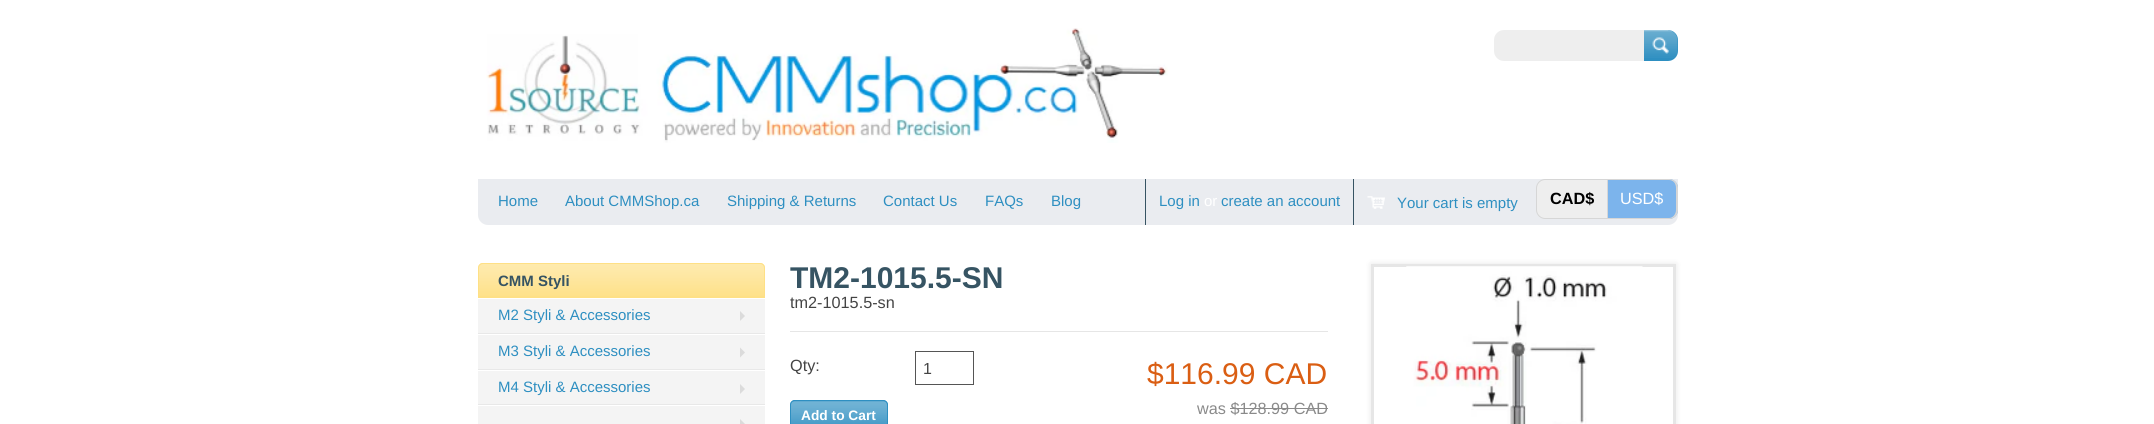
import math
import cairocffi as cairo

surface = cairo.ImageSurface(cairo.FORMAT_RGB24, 2154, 424)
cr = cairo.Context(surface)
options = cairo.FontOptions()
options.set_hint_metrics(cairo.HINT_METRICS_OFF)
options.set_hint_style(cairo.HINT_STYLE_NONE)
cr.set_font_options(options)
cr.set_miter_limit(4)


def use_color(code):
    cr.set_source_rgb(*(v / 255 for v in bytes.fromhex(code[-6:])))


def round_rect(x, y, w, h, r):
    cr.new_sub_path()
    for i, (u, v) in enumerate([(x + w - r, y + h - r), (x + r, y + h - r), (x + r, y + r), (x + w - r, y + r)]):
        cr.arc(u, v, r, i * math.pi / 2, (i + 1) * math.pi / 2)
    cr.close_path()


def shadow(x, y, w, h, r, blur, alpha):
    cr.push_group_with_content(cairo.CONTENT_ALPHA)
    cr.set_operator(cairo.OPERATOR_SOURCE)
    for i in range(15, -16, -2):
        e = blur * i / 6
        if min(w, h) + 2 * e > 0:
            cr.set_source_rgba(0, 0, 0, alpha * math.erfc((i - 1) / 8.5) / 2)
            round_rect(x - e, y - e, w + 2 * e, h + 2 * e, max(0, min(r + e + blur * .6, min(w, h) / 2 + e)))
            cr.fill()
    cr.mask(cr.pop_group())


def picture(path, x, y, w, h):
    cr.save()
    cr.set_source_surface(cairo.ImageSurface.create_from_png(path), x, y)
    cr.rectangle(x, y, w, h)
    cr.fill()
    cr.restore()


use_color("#ffffff")
cr.paint()
picture("img1.png", 486, 28, 682, 115)
use_color("#eeeeee")
cr.new_path()
cr.move_to(1504, 30)
cr.line_to(1644, 30)
cr.line_to(1644, 61)
cr.line_to(1504, 61)
cr.curve_to(1498.5, 61, 1494, 56.5, 1494, 51)
cr.line_to(1494, 40)
cr.curve_to(1494, 34.5, 1498.5, 30, 1504, 30)
cr.close_path()
cr.fill()
use_color("#2e8fc1")
cr.new_path()
cr.move_to(1644, 30)
cr.line_to(1668, 30)
cr.curve_to(1673.5, 30, 1678, 34.5, 1678, 40)
cr.line_to(1678, 51)
cr.curve_to(1678, 56.5, 1673.5, 61, 1668, 61)
cr.line_to(1644, 61)
cr.close_path()
cr.fill()
picture("img2.png", 1644, 30, 34, 28)
use_color("#eaecf0")
cr.new_path()
cr.move_to(478, 179)
cr.line_to(1678, 179)
cr.line_to(1678, 215)
cr.curve_to(1678, 220.5, 1673.5, 225, 1668, 225)
cr.line_to(488, 225)
cr.curve_to(482.5, 225, 478, 220.5, 478, 215)
cr.close_path()
cr.fill()
cr.select_font_face("Liberation Sans")
cr.set_font_size(15)
use_color("#2e8fc1")
cr.move_to(498, 206)
cr.show_text("Home")
cr.move_to(565, 206)
cr.show_text("About CMMShop.ca")
cr.move_to(727, 206)
cr.show_text("Shipping & Returns")
cr.move_to(883, 206)
cr.show_text("Contact Us")
cr.move_to(985, 206)
cr.show_text("FAQs")
cr.move_to(1051, 206)
cr.show_text("Blog")
use_color("#365463")
cr.rectangle(1145, 179, 1, 46)
cr.fill()
use_color("#2e8fc1")
cr.move_to(1159, 206)
cr.show_text("Log in")
use_color("#ffffff")
cr.move_to(1204, 206)
cr.show_text("or")
use_color("#2e8fc1")
cr.move_to(1221, 206)
cr.show_text("create an account")
use_color("#365463")
cr.rectangle(1353, 179, 1, 46)
cr.fill()
picture("img3.png", 1367, 196, 18, 13)
use_color("#2e8fc1")
cr.move_to(1397, 208)
cr.show_text("Your cart is empty")
use_color("#eeeeee")
cr.new_path()
cr.move_to(1545, 179.5)
cr.line_to(1607.5, 179.5)
cr.line_to(1607.5, 218.5)
cr.line_to(1545, 218.5)
cr.curve_to(1540.5, 218.5, 1536.5, 214.5, 1536.5, 210)
cr.line_to(1536.5, 188)
cr.curve_to(1536.5, 183.5, 1540.5, 179.5, 1545, 179.5)
cr.close_path()
cr.fill_preserve()
use_color("#d6d6d6")
cr.set_line_width(1)
cr.stroke()
cr.select_font_face("Liberation Sans", cairo.FONT_SLANT_NORMAL, cairo.FONT_WEIGHT_BOLD)
cr.set_font_size(16.25)
use_color("#000000")
cr.move_to(1550, 204)
cr.show_text("CAD$")
use_color("#7cb4ec")
cr.new_path()
cr.move_to(1608, 179)
cr.line_to(1669, 179)
cr.curve_to(1674, 179, 1678, 183, 1678, 188)
cr.line_to(1678, 210)
cr.curve_to(1678, 215, 1674, 219, 1669, 219)
cr.line_to(1608, 219)
cr.close_path()
cr.fill()
use_color("#d6d6d6")
cr.set_fill_rule(cairo.FILL_RULE_EVEN_ODD)
cr.new_path()
cr.move_to(1608, 179)
cr.line_to(1669, 179)
cr.curve_to(1674, 179, 1678, 183, 1678, 188)
cr.line_to(1678, 210)
cr.curve_to(1678, 215, 1674, 219, 1669, 219)
cr.line_to(1608, 219)
cr.close_path()
cr.move_to(1608, 180)
cr.line_to(1669, 180)
cr.curve_to(1673, 180, 1676, 183, 1676, 188)
cr.line_to(1676, 210)
cr.curve_to(1676, 214, 1673, 218, 1669, 218)
cr.line_to(1608, 218)
cr.close_path()
cr.fill()
cr.select_font_face("Liberation Sans")
use_color("#ffffff")
cr.move_to(1620, 204)
cr.show_text("USD$")
use_color("#fee086")
cr.new_path()
cr.move_to(483, 263)
cr.line_to(760, 263)
cr.curve_to(763, 263, 765, 265, 765, 268)
cr.line_to(765, 298)
cr.line_to(478, 298)
cr.line_to(478, 268)
cr.curve_to(478, 265, 480, 263, 483, 263)
cr.close_path()
cr.fill()
picture("img4.png", 478, 263, 287, 33)
cr.new_path()
cr.move_to(483, 263.5)
cr.line_to(760, 263.5)
cr.curve_to(762.5, 263.5, 764.5, 265.5, 764.5, 268)
cr.line_to(764.5, 297.5)
cr.line_to(478.5, 297.5)
cr.line_to(478.5, 268)
cr.curve_to(478.5, 265.5, 480.5, 263.5, 483, 263.5)
cr.close_path()
cr.stroke()
cr.select_font_face("Liberation Sans", cairo.FONT_SLANT_NORMAL, cairo.FONT_WEIGHT_BOLD)
cr.set_font_size(15)
use_color("#365463")
cr.move_to(498, 286)
cr.show_text("CMM Styli")
use_color("#f4f4f4")
cr.rectangle(478, 299, 287, 34)
cr.fill()
use_color("#e8e8e8")
cr.rectangle(478, 333, 287, 1)
cr.fill()
cr.select_font_face("Liberation Sans")
use_color("#2e8fc1")
cr.move_to(498, 320)
cr.show_text("M2 Styli & Accessories")
use_color("#dbdbdb")
cr.set_fill_rule(cairo.FILL_RULE_WINDING)
cr.new_path()
cr.move_to(740, 321)
cr.line_to(740, 311)
cr.line_to(745, 316)
cr.close_path()
cr.fill()
use_color("#f4f4f4")
cr.rectangle(478, 335, 287, 34)
cr.fill()
use_color("#e8e8e8")
cr.rectangle(478, 369, 287, 1)
cr.fill()
use_color("#2e8fc1")
cr.move_to(498, 356)
cr.show_text("M3 Styli & Accessories")
use_color("#dbdbdb")
cr.new_path()
cr.move_to(740, 357.5)
cr.line_to(740, 347.5)
cr.line_to(745, 352.5)
cr.close_path()
cr.fill()
use_color("#f4f4f4")
cr.rectangle(478, 371, 287, 33)
cr.fill()
use_color("#e8e8e8")
cr.rectangle(478, 404, 287, 1)
cr.fill()
use_color("#2e8fc1")
cr.move_to(498, 392)
cr.show_text("M4 Styli & Accessories")
use_color("#dbdbdb")
cr.new_path()
cr.move_to(740, 394)
cr.line_to(740, 384)
cr.line_to(745, 389)
cr.close_path()
cr.fill()
use_color("#f4f4f4")
cr.rectangle(478, 406, 287, 18)
cr.fill()
use_color("#dbdbdb")
cr.new_path()
cr.move_to(740, 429)
cr.line_to(740, 419)
cr.line_to(745, 424)
cr.close_path()
cr.fill()
use_color("#e6e6e6")
cr.rectangle(790, 331, 538, 1)
cr.fill()
cr.select_font_face("Liberation Sans", cairo.FONT_SLANT_NORMAL, cairo.FONT_WEIGHT_BOLD)
cr.set_font_size(30)
use_color("#365463")
cr.move_to(790, 288)
cr.show_text("TM2-1015.5-SN")
cr.select_font_face("Liberation Sans")
cr.set_font_size(16.25)
use_color("#444444")
cr.move_to(790, 308)
cr.show_text("tm2-1015.5-sn")
cr.move_to(790, 371)
cr.show_text("Qty:")
cr.rectangle(915.5, 351.5, 58, 33)
use_color("#555555")
cr.stroke()
cr.set_font_size(16)
use_color("#444444")
cr.move_to(923, 374)
cr.show_text("1")
use_color("#2e8fc1")
round_rect(790, 400, 98, 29, 5)
cr.fill()
picture("img5.png", 790, 401, 98, 23)
round_rect(790.5, 400.5, 97, 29, 4.5)
cr.stroke()
cr.select_font_face("Liberation Sans", cairo.FONT_SLANT_NORMAL, cairo.FONT_WEIGHT_BOLD)
cr.set_font_size(13.75)
use_color("#ffffff")
cr.move_to(801, 420)
cr.show_text("Add to Cart")
cr.select_font_face("Liberation Sans")
cr.set_font_size(30)
use_color("#da5e13")
cr.move_to(1147, 384)
cr.show_text("$116.99 CAD")
cr.set_font_size(16.25)
use_color("#8a8a8a")
cr.move_to(1197, 414)
cr.show_text("was $128.99 CAD")
cr.rectangle(1230, 408, 98, 1)
cr.fill()
cr.save()
cr.set_fill_rule(cairo.FILL_RULE_EVEN_ODD)
cr.new_path()
cr.move_to(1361, 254)
cr.line_to(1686, 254)
cr.line_to(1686, 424)
cr.line_to(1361, 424)
cr.close_path()
cr.move_to(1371, 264)
cr.line_to(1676, 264)
cr.line_to(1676, 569)
cr.line_to(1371, 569)
cr.close_path()
cr.clip()
use_color("#000000")
shadow(1371, 264, 305, 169, 0, 3, 0.1)
cr.restore()
cr.rectangle(1372.5, 265.5, 302, 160)
use_color("#e6e6e6")
cr.set_line_width(3)
cr.stroke()
picture("img6.png", 1406, 266, 237, 158)
surface.write_to_png("result.png")
